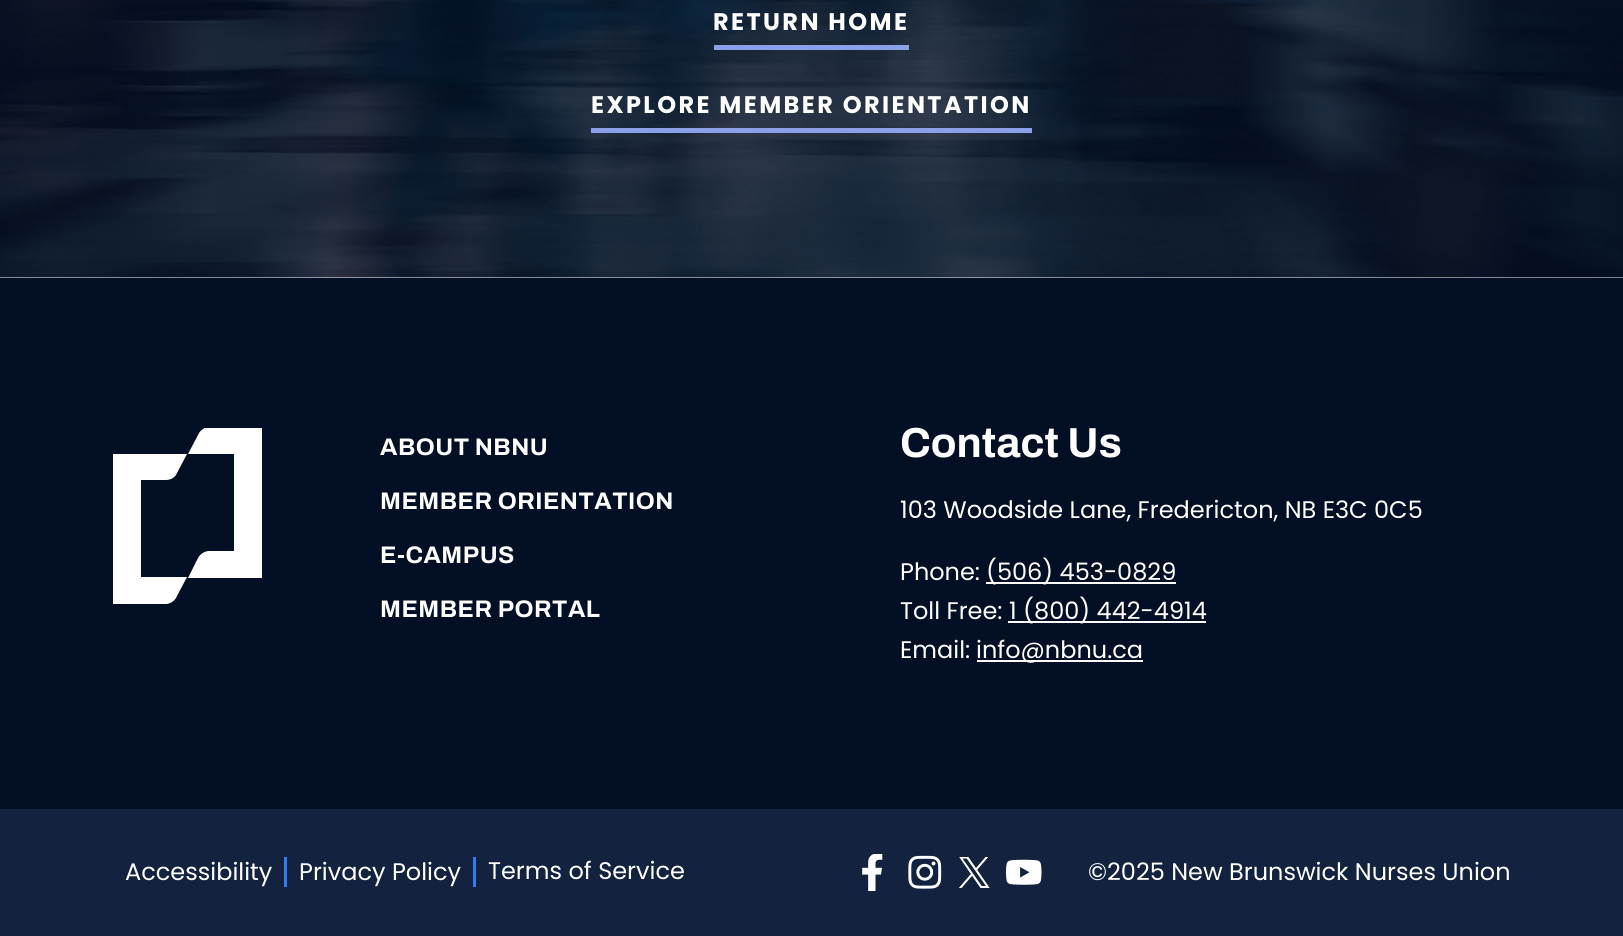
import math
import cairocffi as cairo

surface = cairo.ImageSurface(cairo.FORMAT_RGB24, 1623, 936)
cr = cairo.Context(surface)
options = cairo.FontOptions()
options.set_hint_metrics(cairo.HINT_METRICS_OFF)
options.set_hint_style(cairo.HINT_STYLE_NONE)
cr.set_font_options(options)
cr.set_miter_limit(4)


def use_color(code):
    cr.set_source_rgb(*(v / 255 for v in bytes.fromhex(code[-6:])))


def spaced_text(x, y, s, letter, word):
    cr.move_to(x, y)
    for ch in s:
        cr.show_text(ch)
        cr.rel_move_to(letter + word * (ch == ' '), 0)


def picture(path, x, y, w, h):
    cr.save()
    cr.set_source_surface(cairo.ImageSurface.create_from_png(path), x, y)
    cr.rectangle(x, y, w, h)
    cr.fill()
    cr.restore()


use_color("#ffffff")
cr.paint()
picture("img1.png", 0, 0, 1623, 278)
use_color("#8ba0e9")
cr.rectangle(714, 45, 195, 5)
cr.fill()
cr.select_font_face("Poppins", cairo.FONT_SLANT_NORMAL, cairo.FONT_WEIGHT_BOLD)
cr.set_font_size(24)
use_color("#ffffff")
spaced_text(713, 30, "RETURN HOME", 2.4, 0)
use_color("#8ba0e9")
cr.rectangle(591, 128, 441, 5)
cr.fill()
use_color("#ffffff")
spaced_text(591, 113, "EXPLORE MEMBER ORIENTATION", 2.4, 0)
use_color("#030f25")
cr.rectangle(0, 278, 1623, 531)
cr.fill()
cr.save()
cr.rectangle(113, 428, 150, 178)
cr.clip()
use_color("#ffffff")
cr.new_path()
cr.move_to(112, 604)
cr.line_to(112, 454)
cr.line_to(187, 454)
cr.line_to(177, 473)
cr.curve_to(175, 478, 170, 480, 166, 480)
cr.line_to(141, 480)
cr.line_to(141, 577)
cr.line_to(187, 577)
cr.line_to(177, 596)
cr.curve_to(175, 601, 170, 604, 166, 604)
cr.close_path()
cr.fill()
cr.new_path()
cr.move_to(262, 428)
cr.line_to(262, 578)
cr.line_to(188, 578)
cr.line_to(198, 558)
cr.curve_to(200, 554, 205, 551, 209, 551)
cr.line_to(234, 551)
cr.line_to(234, 454)
cr.line_to(188, 454)
cr.line_to(198, 435)
cr.curve_to(200, 430, 205, 427, 209, 427)
cr.line_to(262, 427)
cr.close_path()
cr.fill()
cr.restore()
cr.select_font_face("Archivo", cairo.FONT_SLANT_NORMAL, cairo.FONT_WEIGHT_BOLD)
use_color("#ffffff")
spaced_text(380, 455, "ABOUT NBNU", 0.5, 0)
spaced_text(380, 509, "MEMBER ORIENTATION", 0.5, 0)
spaced_text(380, 563, "E-CAMPUS", 0.5, 0)
spaced_text(380, 617, "MEMBER PORTAL", 0.5, 0)
cr.set_font_size(42)
cr.move_to(900, 457)
cr.show_text("Contact Us")
cr.select_font_face("Poppins")
cr.set_font_size(24)
cr.move_to(900, 518)
cr.show_text("103 Woodside Lane, Fredericton, NB E3C 0C5")
cr.move_to(900, 580)
cr.show_text("Phone:")
cr.rectangle(986, 582, 190, 2)
cr.fill()
cr.move_to(986, 580)
cr.show_text("(506) 453-0829")
cr.move_to(900, 619)
cr.show_text("Toll Free:")
cr.rectangle(1008, 621, 198, 2)
cr.fill()
cr.move_to(1009, 619)
cr.show_text("1 (800) 442-4914")
cr.move_to(900, 658)
cr.show_text("Email:")
cr.rectangle(977, 660, 166, 2)
cr.fill()
cr.move_to(976, 658)
cr.show_text("info@nbnu.ca")
use_color("#13223e")
cr.rectangle(0, 809, 1623, 127)
cr.fill()
use_color("#327ded")
cr.rectangle(284, 857, 3, 30)
cr.fill()
use_color("#ffffff")
cr.move_to(125, 880)
cr.show_text("Accessibility")
use_color("#327ded")
cr.rectangle(473, 857, 3, 30)
cr.fill()
use_color("#ffffff")
cr.move_to(299, 880)
cr.show_text("Privacy Policy")
cr.move_to(488, 879)
cr.show_text("Terms of Service")
picture("img2.png", 862, 854, 21, 37)
picture("img3.png", 908, 855, 34, 34)
picture("img4.png", 959, 857, 31, 31)
picture("img5.png", 1006, 859, 36, 26)
cr.move_to(1088, 880)
cr.show_text("©2025 New Brunswick Nurses Union")
surface.write_to_png("result.png")
